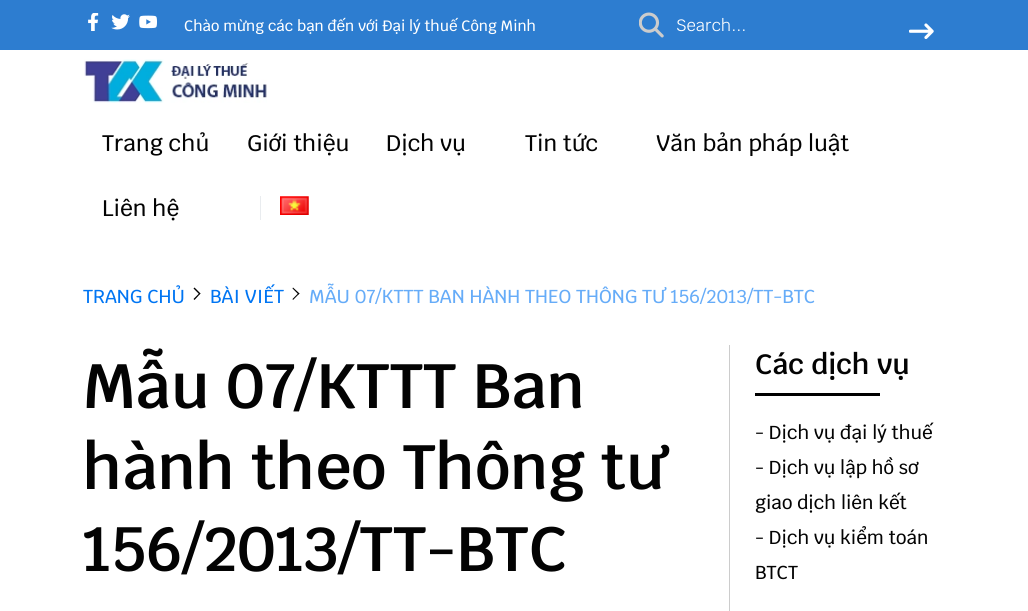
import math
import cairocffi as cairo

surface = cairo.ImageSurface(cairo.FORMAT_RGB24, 1028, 611)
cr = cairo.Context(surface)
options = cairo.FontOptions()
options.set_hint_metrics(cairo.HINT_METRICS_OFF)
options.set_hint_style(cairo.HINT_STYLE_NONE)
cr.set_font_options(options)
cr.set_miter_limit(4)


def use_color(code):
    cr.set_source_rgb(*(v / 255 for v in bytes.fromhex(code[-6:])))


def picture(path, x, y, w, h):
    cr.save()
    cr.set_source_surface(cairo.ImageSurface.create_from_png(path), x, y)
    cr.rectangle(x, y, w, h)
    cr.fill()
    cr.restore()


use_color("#ffffff")
cr.paint()
use_color("#2d7dd0")
cr.rectangle(0, 0, 1028, 50)
cr.fill()
picture("img1.png", 88, 13, 11, 18)
picture("img2.png", 111, 14, 19, 16)
picture("img3.png", 139, 15, 18, 14)
cr.select_font_face("Krub Medium")
cr.set_font_size(15)
use_color("#ffffff")
cr.move_to(184, 31)
cr.show_text("Chào mừng các bạn đến với Đại lý thuế Công Minh")
picture("img4.png", 639, 12, 25, 26)
cr.select_font_face("Krub")
cr.set_font_size(16.5)
cr.move_to(676, 31)
cr.show_text("Search...")
picture("img5.png", 909, 23, 25, 16)
picture("img6.png", 84, 59, 183, 44)
cr.select_font_face("Krub Medium")
cr.set_font_size(22.5)
use_color("#030303")
cr.move_to(102, 151)
cr.show_text("Trang chủ")
cr.move_to(247, 151)
cr.show_text("Giới thiệu")
cr.move_to(386, 151)
cr.show_text("Dịch vụ")
cr.move_to(525, 151)
cr.show_text("Tin tức")
cr.move_to(656, 151)
cr.show_text("Văn bản pháp luật")
cr.move_to(102, 216)
cr.show_text("Liên hệ")
use_color("#e9ecef")
cr.rectangle(260, 196, 1, 24)
cr.fill()
picture("img7.png", 280, 196, 29, 19)
cr.set_font_size(18.75)
use_color("#0075f3")
cr.move_to(83, 303)
cr.show_text("TRANG CHỦ")
use_color("#000000")
cr.new_path()
cr.move_to(193.5, 288.5)
cr.line_to(194.5, 287.5)
cr.line_to(200.5, 293.5)
cr.line_to(199.5, 294.5)
cr.close_path()
cr.fill()
cr.new_path()
cr.move_to(193.5, 299)
cr.line_to(199.5, 293)
cr.line_to(200.5, 293.5)
cr.line_to(194.5, 300)
cr.close_path()
cr.fill()
use_color("#0075f3")
cr.move_to(210, 303)
cr.show_text("BÀI VIẾT")
use_color("#000000")
cr.new_path()
cr.move_to(292.5, 288.5)
cr.line_to(293, 287.5)
cr.line_to(299.5, 293.5)
cr.line_to(298.5, 294.5)
cr.close_path()
cr.fill()
cr.new_path()
cr.move_to(292.5, 299)
cr.line_to(298.5, 293)
cr.line_to(299.5, 293.5)
cr.line_to(293, 300)
cr.close_path()
cr.fill()
use_color("#66acf8")
cr.move_to(309, 303)
cr.show_text("MẪU 07/KTTT BAN HÀNH THEO THÔNG TƯ 156/2013/TT-BTC")
use_color("#cccccc")
cr.rectangle(729, 345, 1, 266)
cr.fill()
cr.select_font_face("Krub SemiBold")
cr.set_font_size(62.5)
use_color("#030303")
cr.move_to(83, 408)
cr.show_text("Mẫu 07/KTTT Ban")
cr.move_to(83, 489)
cr.show_text("hành theo Thông tư")
cr.move_to(83, 571)
cr.show_text("156/2013/TT-BTC")
cr.set_font_size(28)
cr.move_to(755, 374)
cr.show_text("Các dịch vụ")
use_color("#000000")
cr.rectangle(755, 393, 125, 3)
cr.fill()
cr.select_font_face("Krub Medium")
cr.set_font_size(18.75)
use_color("#030303")
cr.move_to(755, 439)
cr.show_text("- Dịch vụ đại lý thuế")
cr.move_to(755, 474)
cr.show_text("- Dịch vụ lập hồ sơ")
cr.move_to(755, 509)
cr.show_text("giao dịch liên kết")
cr.move_to(755, 544)
cr.show_text("- Dịch vụ kiểm toán")
cr.move_to(755, 579)
cr.show_text("BTCT")
surface.write_to_png("result.png")
